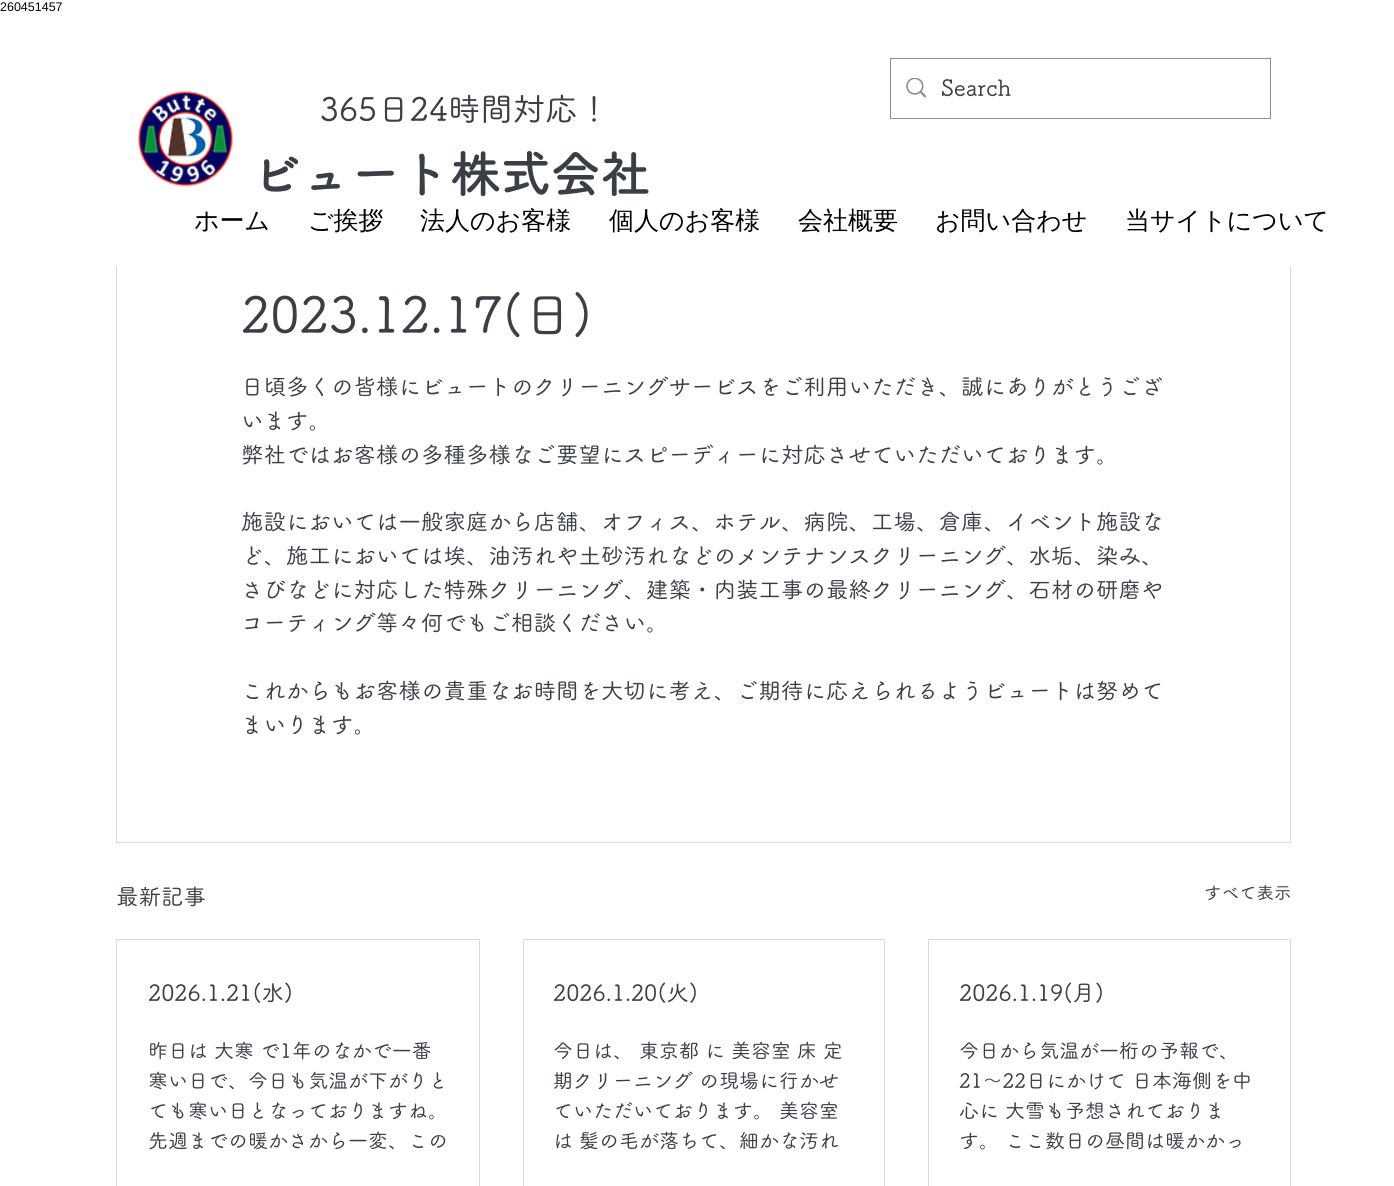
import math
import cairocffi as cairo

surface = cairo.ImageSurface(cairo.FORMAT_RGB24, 1394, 1186)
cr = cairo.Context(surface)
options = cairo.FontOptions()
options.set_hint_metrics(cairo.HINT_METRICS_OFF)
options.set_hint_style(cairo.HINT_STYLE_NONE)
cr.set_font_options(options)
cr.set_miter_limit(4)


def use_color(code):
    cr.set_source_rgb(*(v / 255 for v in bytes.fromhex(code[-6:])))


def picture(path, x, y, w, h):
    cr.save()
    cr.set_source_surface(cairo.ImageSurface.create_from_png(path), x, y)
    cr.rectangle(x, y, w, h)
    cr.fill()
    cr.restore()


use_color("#ffffff")
cr.paint()
cr.select_font_face("Liberation Sans")
cr.set_font_size(12.5)
use_color("#000000")
cr.move_to(0, 11)
cr.show_text("260451457")
cr.rectangle(890.5, 58.5, 380, 60)
use_color("#898c90")
cr.set_line_width(1)
cr.stroke()
picture("img1.png", 906, 78, 20, 20)
cr.select_font_face("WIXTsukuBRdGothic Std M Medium")
cr.set_font_size(22.5)
use_color("#3a3f46")
cr.move_to(941, 96)
cr.show_text("Search")
cr.rectangle(116.5, 184.5, 1174, 658)
use_color("#d8dbdf")
cr.stroke()
use_color("#ffffff")
cr.rectangle(116, 184, 1175, 82)
cr.fill()
cr.select_font_face("WenQuanYi Zen Hei Medium")
cr.set_font_size(25)
use_color("#000000")
cr.move_to(194, 229)
cr.show_text("ホーム")
cr.move_to(308, 229)
cr.show_text("ご挨拶")
cr.move_to(420, 229)
cr.show_text("法人のお客様")
cr.move_to(609, 229)
cr.show_text("個人のお客様")
cr.move_to(798, 229)
cr.show_text("会社概要")
cr.move_to(935, 229)
cr.show_text("お問い合わせ")
cr.move_to(1125, 229)
cr.show_text("当サイトについて")
picture("img2.png", 137, 91, 96, 96)
cr.select_font_face("WIXTsukuBRdGothic Std M Medium")
cr.set_font_size(32.5)
use_color("#3a3f46")
cr.move_to(320, 121)
cr.show_text("365日24時間対応！")
cr.select_font_face("WIXTsukuBRdGothic Std M", cairo.FONT_SLANT_NORMAL, cairo.FONT_WEIGHT_BOLD)
cr.set_font_size(50)
cr.move_to(250, 193)
cr.show_text("ビュート株式会社")
cr.select_font_face("WIXTsukuBRdGothic Std M Medium")
cr.move_to(241, 333)
cr.show_text("2023.12.17(日)")
cr.set_font_size(22.5)
cr.move_to(241, 395)
cr.show_text("日頃多くの皆様にビュートのクリーニングサービスをご利用いただき、誠にありがとうござ")
cr.move_to(241, 429)
cr.show_text("います。")
cr.move_to(241, 463)
cr.show_text("弊社ではお客様の多種多様なご要望にスピーディーに対応させていただいております。")
cr.move_to(241, 530)
cr.show_text("施設においては一般家庭から店舗、オフィス、ホテル、病院、工場、倉庫、イベント施設な")
cr.move_to(241, 564)
cr.show_text("ど、施工においては埃、油汚れや土砂汚れなどのメンテナンスクリーニング、水垢、染み、")
cr.move_to(241, 598)
cr.show_text("さびなどに対応した特殊クリーニング、建築・内装工事の最終クリーニング、石材の研磨や")
cr.move_to(241, 631)
cr.show_text("コーティング等々何でもご相談ください。")
cr.move_to(241, 699)
cr.show_text("これからもお客様の貴重なお時間を大切に考え、ご期待に応えられるようビュートは努めて")
cr.move_to(241, 733)
cr.show_text("まいります。")
cr.move_to(116, 905)
cr.show_text("最新記事")
cr.set_font_size(17.5)
cr.move_to(1204, 899)
cr.show_text("すべて表示")
cr.rectangle(116.5, 939.5, 363, 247)
use_color("#d8dbdf")
cr.stroke()
cr.set_font_size(22.5)
use_color("#3a3f46")
cr.move_to(148, 1001)
cr.show_text("2026.1.21(水)")
cr.set_font_size(20)
cr.move_to(148, 1058)
cr.show_text("昨日は 大寒 で1年のなかで一番")
cr.move_to(148, 1088)
cr.show_text("寒い日で、今日も気温が下がりと")
cr.move_to(148, 1118)
cr.show_text("ても寒い日となっておりますね。")
cr.move_to(148, 1148)
cr.show_text("先週までの暖かさから一変、この")
cr.rectangle(523.5, 939.5, 361, 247)
use_color("#d8dbdf")
cr.stroke()
cr.set_font_size(22.5)
use_color("#3a3f46")
cr.move_to(553, 1001)
cr.show_text("2026.1.20(火)")
cr.set_font_size(20)
cr.move_to(553, 1058)
cr.show_text("今日は、 東京都 に 美容室 床 定")
cr.move_to(553, 1088)
cr.show_text("期クリーニング の現場に行かせ")
cr.move_to(553, 1118)
cr.show_text("ていただいております。 美容室")
cr.move_to(553, 1148)
cr.show_text("は 髪の毛が落ちて、細かな汚れ")
cr.rectangle(928.5, 939.5, 362, 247)
use_color("#d8dbdf")
cr.stroke()
cr.set_font_size(22.5)
use_color("#3a3f46")
cr.move_to(959, 1001)
cr.show_text("2026.1.19(月)")
cr.set_font_size(20)
cr.move_to(959, 1058)
cr.show_text("今日から気温が一桁の予報で、")
cr.move_to(959, 1088)
cr.show_text("21～22日にかけて 日本海側を中")
cr.move_to(959, 1118)
cr.show_text("心に 大雪も予想されておりま")
cr.move_to(959, 1148)
cr.show_text("す。 ここ数日の昼間は暖かかっ")
surface.write_to_png("result.png")
